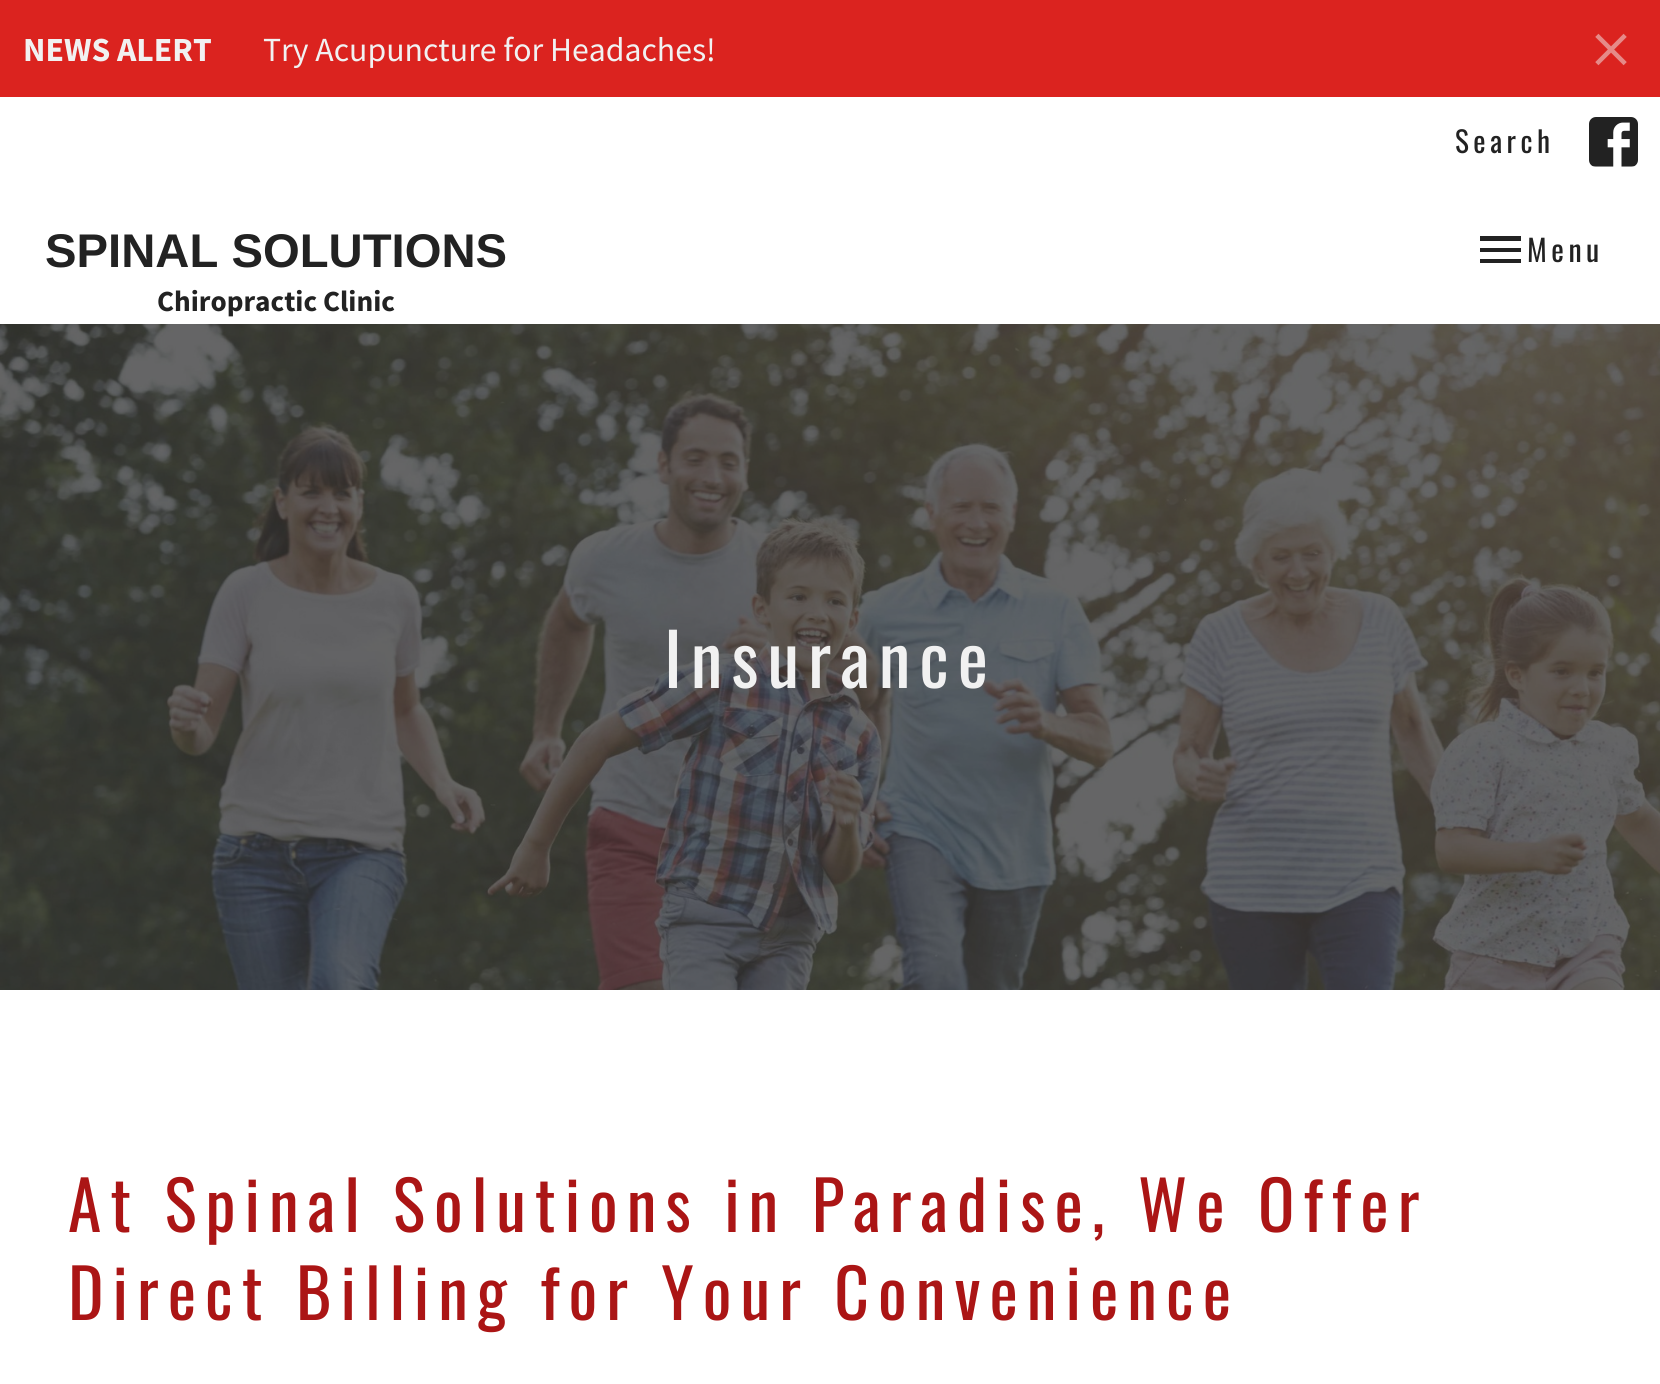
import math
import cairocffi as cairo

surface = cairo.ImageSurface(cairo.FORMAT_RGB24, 1660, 1384)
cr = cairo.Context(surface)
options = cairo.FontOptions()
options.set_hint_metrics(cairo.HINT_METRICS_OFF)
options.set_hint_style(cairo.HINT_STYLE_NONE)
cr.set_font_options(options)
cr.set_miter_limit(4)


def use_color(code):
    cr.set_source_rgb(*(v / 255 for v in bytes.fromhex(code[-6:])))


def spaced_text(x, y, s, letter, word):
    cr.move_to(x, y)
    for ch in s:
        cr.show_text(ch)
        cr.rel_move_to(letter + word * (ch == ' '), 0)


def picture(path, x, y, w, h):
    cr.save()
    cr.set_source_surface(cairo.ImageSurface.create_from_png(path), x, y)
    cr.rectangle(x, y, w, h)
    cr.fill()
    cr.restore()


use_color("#ffffff")
cr.paint()
use_color("#db231f")
cr.rectangle(0, 0, 1660, 97)
cr.fill()
cr.select_font_face("Source Sans Pro", cairo.FONT_SLANT_NORMAL, cairo.FONT_WEIGHT_BOLD)
cr.set_font_size(33.75)
use_color("#f1f1f1")
cr.move_to(23, 61)
cr.show_text("NEWS ALERT")
cr.select_font_face("Source Sans Pro")
cr.move_to(263, 61)
cr.show_text("Try Acupuncture for Headaches!")
picture("img1.png", 1595, 33, 32, 33)
cr.select_font_face("Oswald")
cr.set_font_size(29.25)
use_color("#222222")
spaced_text(1455, 153, "Search", 4.5, 0)
picture("img2.png", 1589, 117, 49, 50)
cr.select_font_face("Liberation Sans", cairo.FONT_SLANT_NORMAL, cairo.FONT_WEIGHT_BOLD)
cr.set_font_size(47.25)
cr.move_to(45, 267)
cr.show_text("SPINAL SOLUTIONS")
cr.select_font_face("Source Sans Pro", cairo.FONT_SLANT_NORMAL, cairo.FONT_WEIGHT_BOLD)
cr.set_font_size(29.25)
cr.move_to(157, 311)
cr.show_text("Chiropractic Clinic")
cr.new_path()
cr.move_to(1480, 263)
cr.line_to(1521, 263)
cr.line_to(1521, 259)
cr.line_to(1480, 259)
cr.close_path()
cr.move_to(1480, 252)
cr.line_to(1521, 252)
cr.line_to(1521, 248)
cr.line_to(1480, 248)
cr.close_path()
cr.move_to(1480, 236)
cr.line_to(1480, 241)
cr.line_to(1521, 241)
cr.line_to(1521, 236)
cr.close_path()
cr.fill()
cr.select_font_face("Oswald")
cr.set_font_size(30)
spaced_text(1527, 262, "Menu", 4.5, 0)
picture("img3.png", 0, 324, 1660, 666)
cr.set_font_size(72)
use_color("#f1f1f1")
spaced_text(664, 688, "Insurance", 9, 0)
cr.set_font_size(67.5)
use_color("#ab1515")
spaced_text(68, 1232, "At Spinal Solutions in Paradise, We Offer", 9, 0)
spaced_text(68, 1320, "Direct Billing for Your Convenience", 9, 0)
surface.write_to_png("result.png")
